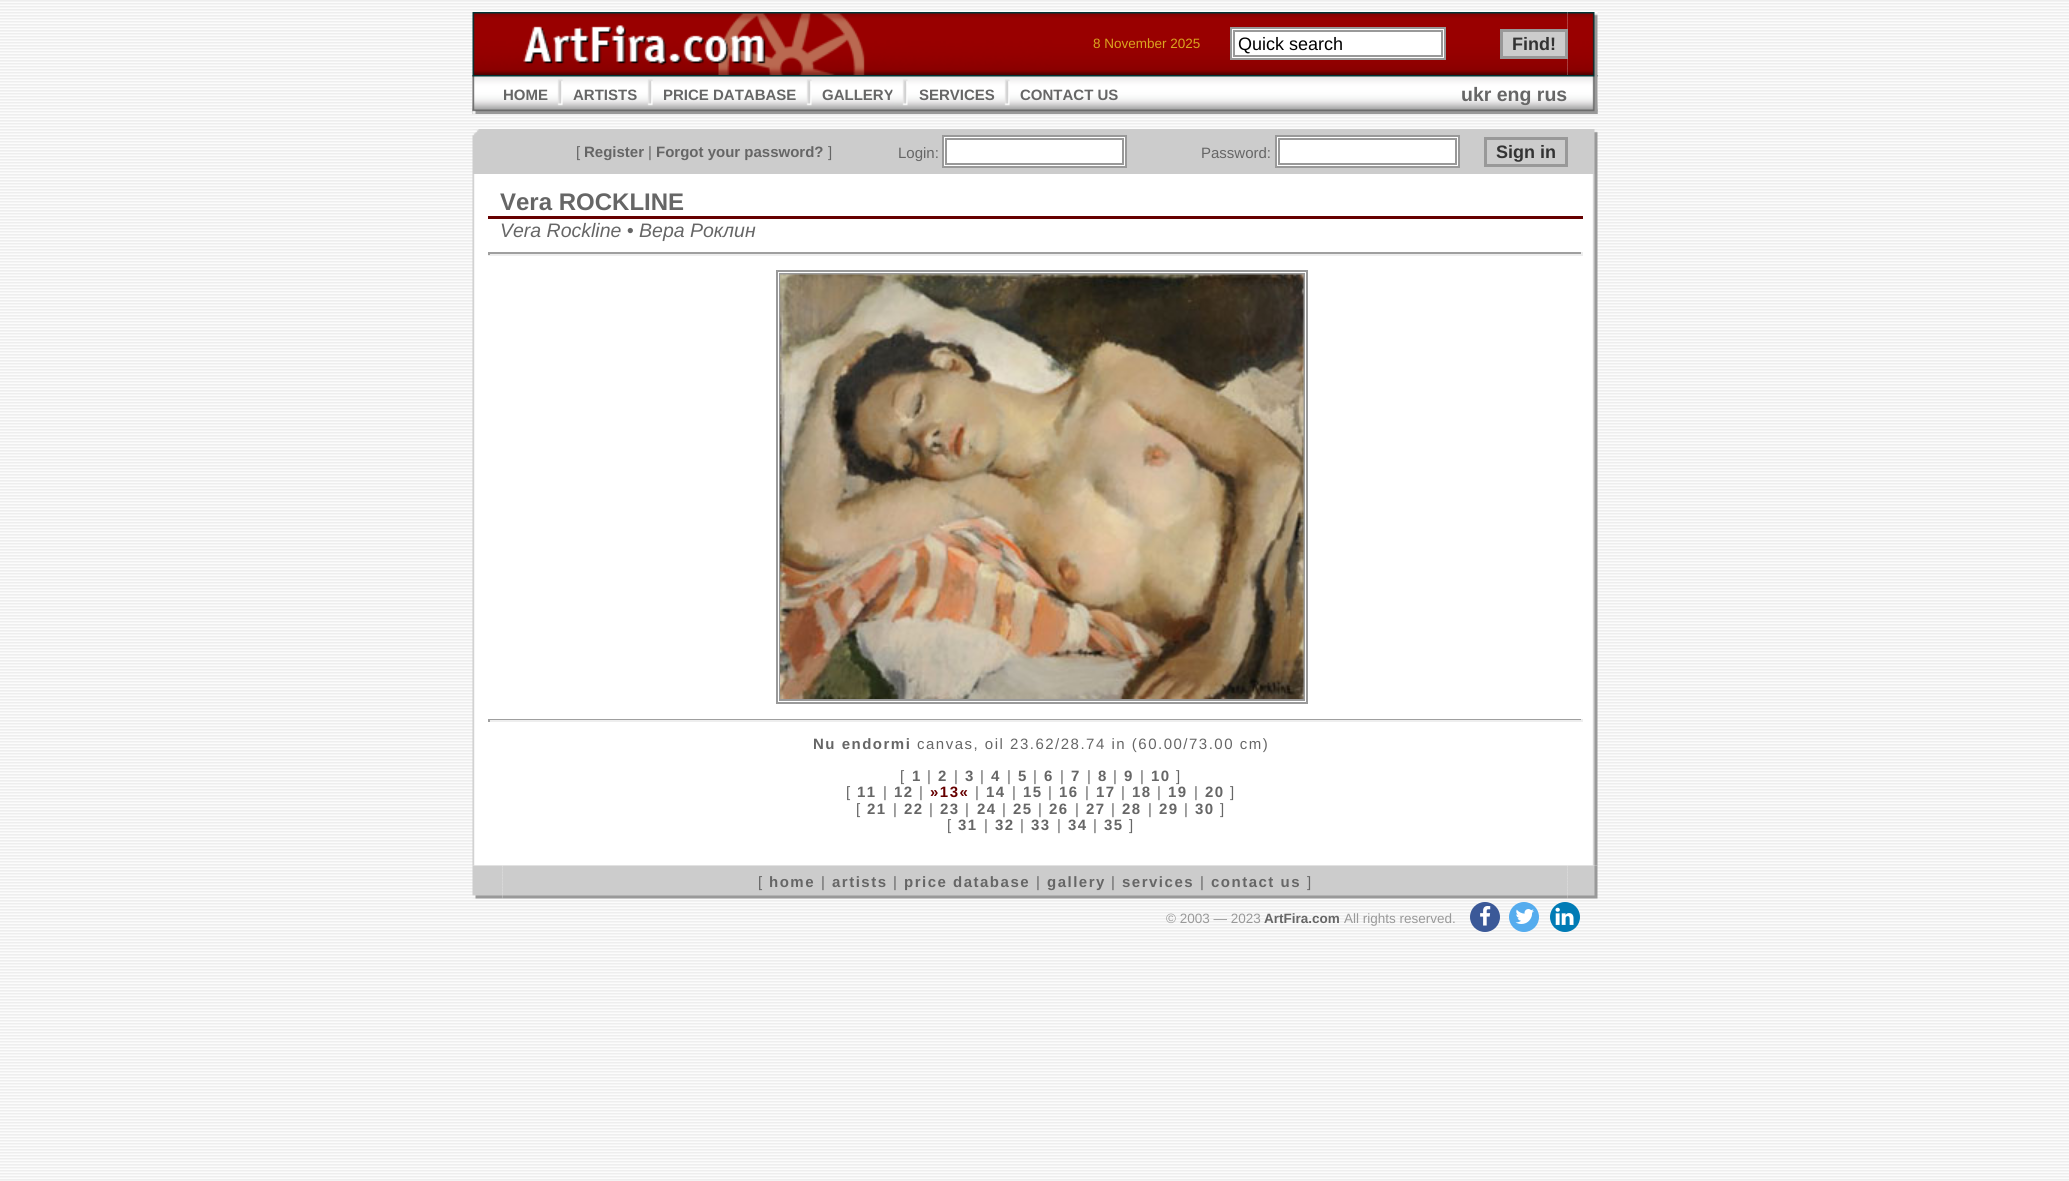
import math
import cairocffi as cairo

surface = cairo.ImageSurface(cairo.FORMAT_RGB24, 2069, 1181)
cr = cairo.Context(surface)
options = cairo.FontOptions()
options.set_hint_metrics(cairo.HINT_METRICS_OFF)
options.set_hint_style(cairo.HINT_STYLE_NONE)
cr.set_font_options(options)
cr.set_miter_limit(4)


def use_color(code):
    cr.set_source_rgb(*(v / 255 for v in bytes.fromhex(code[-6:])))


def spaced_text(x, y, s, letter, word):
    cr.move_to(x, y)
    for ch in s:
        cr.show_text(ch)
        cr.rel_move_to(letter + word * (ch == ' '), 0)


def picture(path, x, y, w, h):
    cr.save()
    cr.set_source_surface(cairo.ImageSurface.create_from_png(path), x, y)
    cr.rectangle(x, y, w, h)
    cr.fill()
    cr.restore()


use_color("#ffffff")
cr.paint()
picture("img1.png", 0, 0, 2069, 1181)
picture("img2.png", 472, 12, 581, 63)
picture("img3.png", 1053, 12, 515, 63)
cr.select_font_face("Liberation Sans")
cr.set_font_size(13.5)
use_color("#daa520")
cr.move_to(1093, 48)
cr.show_text("8 November 2025")
use_color("#ffffff")
cr.rectangle(1231, 28, 214, 31)
cr.fill_preserve()
use_color("#999999")
cr.stroke()
cr.rectangle(1234, 31, 208, 25)
cr.stroke()
cr.set_font_size(18)
use_color("#000000")
cr.move_to(1238, 50)
cr.show_text("Quick search")
picture("img4.png", 1567, 12, 31, 63)
use_color("#cccccc")
cr.rectangle(1501.5, 30.5, 65, 27)
cr.fill_preserve()
use_color("#999999")
cr.set_line_width(3)
cr.stroke()
cr.select_font_face("Liberation Sans", cairo.FONT_SLANT_NORMAL, cairo.FONT_WEIGHT_BOLD)
use_color("#333333")
cr.move_to(1512, 50)
cr.show_text("Find!")
picture("img5.png", 472, 75, 1126, 39)
picture("img6.png", 472, 75, 4, 39)
cr.set_font_size(15)
use_color("#666666")
cr.move_to(503, 100)
cr.show_text("HOME")
picture("img7.png", 557, 79, 6, 27)
cr.move_to(573, 100)
cr.show_text("ARTISTS")
picture("img7.png", 647, 79, 6, 27)
cr.move_to(663, 100)
cr.show_text("PRICE DATABASE")
picture("img8.png", 806, 79, 6, 27)
cr.move_to(822, 100)
cr.show_text("GALLERY")
picture("img9.png", 892, 79, 16, 27)
cr.move_to(919, 100)
cr.show_text("SERVICES")
picture("img8.png", 1004, 79, 6, 27)
cr.move_to(1020, 100)
cr.show_text("CONTACT US")
cr.set_font_size(19.5)
cr.move_to(1461, 101)
cr.show_text("ukr eng rus")
picture("img10.png", 1592, 75, 6, 39)
picture("img11.png", 472, 129, 30, 45)
use_color("#cccccc")
cr.rectangle(502, 129, 1066, 45)
cr.fill()
cr.select_font_face("Liberation Sans")
cr.set_font_size(15)
use_color("#666666")
cr.move_to(576, 157)
cr.show_text("[")
cr.select_font_face("Liberation Sans", cairo.FONT_SLANT_NORMAL, cairo.FONT_WEIGHT_BOLD)
cr.move_to(584, 157)
cr.show_text("Register")
cr.select_font_face("Liberation Sans")
cr.move_to(648, 157)
cr.show_text("|")
cr.select_font_face("Liberation Sans", cairo.FONT_SLANT_NORMAL, cairo.FONT_WEIGHT_BOLD)
cr.move_to(656, 157)
cr.show_text("Forgot your password?")
cr.select_font_face("Liberation Sans")
cr.move_to(828, 157)
cr.show_text("]")
cr.move_to(898, 158)
cr.show_text("Login:")
use_color("#ffffff")
cr.rectangle(943, 136, 183, 31)
cr.fill_preserve()
use_color("#999999")
cr.set_line_width(2)
cr.stroke()
cr.rectangle(946, 139, 177, 25)
cr.stroke()
use_color("#666666")
cr.move_to(1201, 158)
cr.show_text("Password:")
use_color("#ffffff")
cr.rectangle(1276, 136, 183, 31)
cr.fill_preserve()
use_color("#999999")
cr.stroke()
cr.rectangle(1279, 139, 177, 25)
cr.stroke()
cr.rectangle(1485.5, 138.5, 81, 27)
cr.set_line_width(3)
cr.stroke()
cr.select_font_face("Liberation Sans", cairo.FONT_SLANT_NORMAL, cairo.FONT_WEIGHT_BOLD)
cr.set_font_size(18)
use_color("#333333")
cr.move_to(1496, 158)
cr.show_text("Sign in")
picture("img12.png", 1568, 129, 30, 45)
picture("img13.png", 472, 174, 1126, 692)
use_color("#660000")
cr.rectangle(488, 216, 1095, 3)
cr.fill()
cr.set_font_size(24)
use_color("#666666")
cr.move_to(500, 210)
cr.show_text("Vera ROCKLINE")
cr.select_font_face("Liberation Sans", cairo.FONT_SLANT_ITALIC)
cr.set_font_size(19.5)
cr.move_to(500, 237)
cr.show_text("Vera Rockline • Вера Роклин")
use_color("#9f9f9f")
cr.rectangle(488, 252, 1095, 2)
cr.fill()
use_color("#eeeeee")
cr.rectangle(1581, 252, 2, 3)
cr.fill()
cr.rectangle(488, 254, 1095, 2)
cr.fill()
use_color("#9f9f9f")
cr.rectangle(488, 252, 2, 3)
cr.fill()
cr.rectangle(777, 271, 530, 432)
use_color("#999999")
cr.set_line_width(2)
cr.stroke()
cr.rectangle(780, 274, 524, 426)
cr.stroke()
picture("img14.png", 780, 274, 524, 425)
use_color("#9f9f9f")
cr.rectangle(488, 719, 1095, 1)
cr.fill()
use_color("#eeeeee")
cr.rectangle(1581, 719, 2, 3)
cr.fill()
cr.rectangle(488, 720, 1095, 2)
cr.fill()
use_color("#9f9f9f")
cr.rectangle(488, 719, 2, 3)
cr.fill()
cr.select_font_face("Liberation Sans", cairo.FONT_SLANT_NORMAL, cairo.FONT_WEIGHT_BOLD)
cr.set_font_size(15)
use_color("#666666")
spaced_text(813, 749, "Nu endormi", 1.5, 0)
cr.select_font_face("Liberation Sans")
spaced_text(917, 749, "canvas, oil 23.62/28.74 in (60.00/73.00 cm)", 1.5, 0)
spaced_text(900, 781, "[", 1.5, 0)
cr.select_font_face("Liberation Sans", cairo.FONT_SLANT_NORMAL, cairo.FONT_WEIGHT_BOLD)
spaced_text(912, 781, "1", 1.5, 0)
cr.select_font_face("Liberation Sans")
spaced_text(927, 781, "|", 1.5, 0)
cr.select_font_face("Liberation Sans", cairo.FONT_SLANT_NORMAL, cairo.FONT_WEIGHT_BOLD)
spaced_text(938, 781, "2", 1.5, 0)
cr.select_font_face("Liberation Sans")
spaced_text(954, 781, "|", 1.5, 0)
cr.select_font_face("Liberation Sans", cairo.FONT_SLANT_NORMAL, cairo.FONT_WEIGHT_BOLD)
spaced_text(965, 781, "3", 1.5, 0)
cr.select_font_face("Liberation Sans")
spaced_text(980, 781, "|", 1.5, 0)
cr.select_font_face("Liberation Sans", cairo.FONT_SLANT_NORMAL, cairo.FONT_WEIGHT_BOLD)
spaced_text(991, 781, "4", 1.5, 0)
cr.select_font_face("Liberation Sans")
spaced_text(1007, 781, "|", 1.5, 0)
cr.select_font_face("Liberation Sans", cairo.FONT_SLANT_NORMAL, cairo.FONT_WEIGHT_BOLD)
spaced_text(1018, 781, "5", 1.5, 0)
cr.select_font_face("Liberation Sans")
spaced_text(1033, 781, "|", 1.5, 0)
cr.select_font_face("Liberation Sans", cairo.FONT_SLANT_NORMAL, cairo.FONT_WEIGHT_BOLD)
spaced_text(1044, 781, "6", 1.5, 0)
cr.select_font_face("Liberation Sans")
spaced_text(1060, 781, "|", 1.5, 0)
cr.select_font_face("Liberation Sans", cairo.FONT_SLANT_NORMAL, cairo.FONT_WEIGHT_BOLD)
spaced_text(1071, 781, "7", 1.5, 0)
cr.select_font_face("Liberation Sans")
spaced_text(1087, 781, "|", 1.5, 0)
cr.select_font_face("Liberation Sans", cairo.FONT_SLANT_NORMAL, cairo.FONT_WEIGHT_BOLD)
spaced_text(1098, 781, "8", 1.5, 0)
cr.select_font_face("Liberation Sans")
spaced_text(1113, 781, "|", 1.5, 0)
cr.select_font_face("Liberation Sans", cairo.FONT_SLANT_NORMAL, cairo.FONT_WEIGHT_BOLD)
spaced_text(1124, 781, "9", 1.5, 0)
cr.select_font_face("Liberation Sans")
spaced_text(1140, 781, "|", 1.5, 0)
cr.select_font_face("Liberation Sans", cairo.FONT_SLANT_NORMAL, cairo.FONT_WEIGHT_BOLD)
spaced_text(1151, 781, "10", 1.5, 0)
cr.select_font_face("Liberation Sans")
spaced_text(1176, 781, "]", 1.5, 0)
spaced_text(846, 797, "[", 1.5, 0)
cr.select_font_face("Liberation Sans", cairo.FONT_SLANT_NORMAL, cairo.FONT_WEIGHT_BOLD)
spaced_text(857, 797, "11", 1.5, 0)
cr.select_font_face("Liberation Sans")
spaced_text(883, 797, "|", 1.5, 0)
cr.select_font_face("Liberation Sans", cairo.FONT_SLANT_NORMAL, cairo.FONT_WEIGHT_BOLD)
spaced_text(894, 797, "12", 1.5, 0)
cr.select_font_face("Liberation Sans")
spaced_text(919, 797, "|", 1.5, 0)
cr.select_font_face("Liberation Sans", cairo.FONT_SLANT_NORMAL, cairo.FONT_WEIGHT_BOLD)
use_color("#660000")
spaced_text(930, 797, "»13«", 1.5, 0)
cr.select_font_face("Liberation Sans")
use_color("#666666")
spaced_text(975, 797, "|", 1.5, 0)
cr.select_font_face("Liberation Sans", cairo.FONT_SLANT_NORMAL, cairo.FONT_WEIGHT_BOLD)
spaced_text(986, 797, "14", 1.5, 0)
cr.select_font_face("Liberation Sans")
spaced_text(1012, 797, "|", 1.5, 0)
cr.select_font_face("Liberation Sans", cairo.FONT_SLANT_NORMAL, cairo.FONT_WEIGHT_BOLD)
spaced_text(1023, 797, "15", 1.5, 0)
cr.select_font_face("Liberation Sans")
spaced_text(1048, 797, "|", 1.5, 0)
cr.select_font_face("Liberation Sans", cairo.FONT_SLANT_NORMAL, cairo.FONT_WEIGHT_BOLD)
spaced_text(1059, 797, "16", 1.5, 0)
cr.select_font_face("Liberation Sans")
spaced_text(1085, 797, "|", 1.5, 0)
cr.select_font_face("Liberation Sans", cairo.FONT_SLANT_NORMAL, cairo.FONT_WEIGHT_BOLD)
spaced_text(1096, 797, "17", 1.5, 0)
cr.select_font_face("Liberation Sans")
spaced_text(1121, 797, "|", 1.5, 0)
cr.select_font_face("Liberation Sans", cairo.FONT_SLANT_NORMAL, cairo.FONT_WEIGHT_BOLD)
spaced_text(1132, 797, "18", 1.5, 0)
cr.select_font_face("Liberation Sans")
spaced_text(1157, 797, "|", 1.5, 0)
cr.select_font_face("Liberation Sans", cairo.FONT_SLANT_NORMAL, cairo.FONT_WEIGHT_BOLD)
spaced_text(1168, 797, "19", 1.5, 0)
cr.select_font_face("Liberation Sans")
spaced_text(1194, 797, "|", 1.5, 0)
cr.select_font_face("Liberation Sans", cairo.FONT_SLANT_NORMAL, cairo.FONT_WEIGHT_BOLD)
spaced_text(1205, 797, "20", 1.5, 0)
cr.select_font_face("Liberation Sans")
spaced_text(1230, 797, "]", 1.5, 0)
spaced_text(856, 814, "[", 1.5, 0)
cr.select_font_face("Liberation Sans", cairo.FONT_SLANT_NORMAL, cairo.FONT_WEIGHT_BOLD)
spaced_text(867, 814, "21", 1.5, 0)
cr.select_font_face("Liberation Sans")
spaced_text(893, 814, "|", 1.5, 0)
cr.select_font_face("Liberation Sans", cairo.FONT_SLANT_NORMAL, cairo.FONT_WEIGHT_BOLD)
spaced_text(904, 814, "22", 1.5, 0)
cr.select_font_face("Liberation Sans")
spaced_text(929, 814, "|", 1.5, 0)
cr.select_font_face("Liberation Sans", cairo.FONT_SLANT_NORMAL, cairo.FONT_WEIGHT_BOLD)
spaced_text(940, 814, "23", 1.5, 0)
cr.select_font_face("Liberation Sans")
spaced_text(965, 814, "|", 1.5, 0)
cr.select_font_face("Liberation Sans", cairo.FONT_SLANT_NORMAL, cairo.FONT_WEIGHT_BOLD)
spaced_text(977, 814, "24", 1.5, 0)
cr.select_font_face("Liberation Sans")
spaced_text(1002, 814, "|", 1.5, 0)
cr.select_font_face("Liberation Sans", cairo.FONT_SLANT_NORMAL, cairo.FONT_WEIGHT_BOLD)
spaced_text(1013, 814, "25", 1.5, 0)
cr.select_font_face("Liberation Sans")
spaced_text(1038, 814, "|", 1.5, 0)
cr.select_font_face("Liberation Sans", cairo.FONT_SLANT_NORMAL, cairo.FONT_WEIGHT_BOLD)
spaced_text(1049, 814, "26", 1.5, 0)
cr.select_font_face("Liberation Sans")
spaced_text(1075, 814, "|", 1.5, 0)
cr.select_font_face("Liberation Sans", cairo.FONT_SLANT_NORMAL, cairo.FONT_WEIGHT_BOLD)
spaced_text(1086, 814, "27", 1.5, 0)
cr.select_font_face("Liberation Sans")
spaced_text(1111, 814, "|", 1.5, 0)
cr.select_font_face("Liberation Sans", cairo.FONT_SLANT_NORMAL, cairo.FONT_WEIGHT_BOLD)
spaced_text(1122, 814, "28", 1.5, 0)
cr.select_font_face("Liberation Sans")
spaced_text(1148, 814, "|", 1.5, 0)
cr.select_font_face("Liberation Sans", cairo.FONT_SLANT_NORMAL, cairo.FONT_WEIGHT_BOLD)
spaced_text(1159, 814, "29", 1.5, 0)
cr.select_font_face("Liberation Sans")
spaced_text(1184, 814, "|", 1.5, 0)
cr.select_font_face("Liberation Sans", cairo.FONT_SLANT_NORMAL, cairo.FONT_WEIGHT_BOLD)
spaced_text(1195, 814, "30", 1.5, 0)
cr.select_font_face("Liberation Sans")
spaced_text(1220, 814, "]", 1.5, 0)
spaced_text(947, 830, "[", 1.5, 0)
cr.select_font_face("Liberation Sans", cairo.FONT_SLANT_NORMAL, cairo.FONT_WEIGHT_BOLD)
spaced_text(958, 830, "31", 1.5, 0)
cr.select_font_face("Liberation Sans")
spaced_text(984, 830, "|", 1.5, 0)
cr.select_font_face("Liberation Sans", cairo.FONT_SLANT_NORMAL, cairo.FONT_WEIGHT_BOLD)
spaced_text(995, 830, "32", 1.5, 0)
cr.select_font_face("Liberation Sans")
spaced_text(1020, 830, "|", 1.5, 0)
cr.select_font_face("Liberation Sans", cairo.FONT_SLANT_NORMAL, cairo.FONT_WEIGHT_BOLD)
spaced_text(1031, 830, "33", 1.5, 0)
cr.select_font_face("Liberation Sans")
spaced_text(1057, 830, "|", 1.5, 0)
cr.select_font_face("Liberation Sans", cairo.FONT_SLANT_NORMAL, cairo.FONT_WEIGHT_BOLD)
spaced_text(1068, 830, "34", 1.5, 0)
cr.select_font_face("Liberation Sans")
spaced_text(1093, 830, "|", 1.5, 0)
cr.select_font_face("Liberation Sans", cairo.FONT_SLANT_NORMAL, cairo.FONT_WEIGHT_BOLD)
spaced_text(1104, 830, "35", 1.5, 0)
cr.select_font_face("Liberation Sans")
spaced_text(1129, 830, "]", 1.5, 0)
picture("img16.png", 502, 865, 1066, 34)
picture("img15.png", 472, 865, 31, 34)
spaced_text(758, 887, "[", 1.5, 0)
cr.select_font_face("Liberation Sans", cairo.FONT_SLANT_NORMAL, cairo.FONT_WEIGHT_BOLD)
spaced_text(769, 887, "home", 1.5, 0)
cr.select_font_face("Liberation Sans")
spaced_text(821, 887, "|", 1.5, 0)
cr.select_font_face("Liberation Sans", cairo.FONT_SLANT_NORMAL, cairo.FONT_WEIGHT_BOLD)
spaced_text(832, 887, "artists", 1.5, 0)
cr.select_font_face("Liberation Sans")
spaced_text(893, 887, "|", 1.5, 0)
cr.select_font_face("Liberation Sans", cairo.FONT_SLANT_NORMAL, cairo.FONT_WEIGHT_BOLD)
spaced_text(904, 887, "price database", 1.5, 0)
cr.select_font_face("Liberation Sans")
spaced_text(1036, 887, "|", 1.5, 0)
cr.select_font_face("Liberation Sans", cairo.FONT_SLANT_NORMAL, cairo.FONT_WEIGHT_BOLD)
spaced_text(1047, 887, "gallery", 1.5, 0)
cr.select_font_face("Liberation Sans")
spaced_text(1111, 887, "|", 1.5, 0)
cr.select_font_face("Liberation Sans", cairo.FONT_SLANT_NORMAL, cairo.FONT_WEIGHT_BOLD)
spaced_text(1122, 887, "services", 1.5, 0)
cr.select_font_face("Liberation Sans")
spaced_text(1200, 887, "|", 1.5, 0)
cr.select_font_face("Liberation Sans", cairo.FONT_SLANT_NORMAL, cairo.FONT_WEIGHT_BOLD)
spaced_text(1211, 887, "contact us", 1.5, 0)
cr.select_font_face("Liberation Sans")
spaced_text(1307, 887, "]", 1.5, 0)
picture("img17.png", 1567, 865, 31, 34)
cr.set_font_size(13.5)
use_color("#999999")
cr.move_to(1166, 923)
cr.show_text("© 2003 — 2023")
cr.select_font_face("Liberation Sans", cairo.FONT_SLANT_NORMAL, cairo.FONT_WEIGHT_BOLD)
use_color("#666666")
cr.move_to(1264, 923)
cr.show_text("ArtFira.com")
cr.select_font_face("Liberation Sans")
use_color("#999999")
cr.move_to(1344, 923)
cr.show_text("All rights reserved.")
use_color("#3b5998")
cr.new_path()
cr.arc(1485, 917, 15, 0, 2 * math.pi)
cr.fill()
picture("img18.png", 1480, 906, 11, 20)
use_color("#55acee")
cr.arc(1524, 917, 15, 0, 2 * math.pi)
cr.fill()
picture("img19.png", 1515, 909, 19, 15)
use_color("#007bb5")
cr.arc(1565, 917, 15, 0, 2 * math.pi)
cr.fill()
picture("img20.png", 1555, 907, 19, 18)
surface.write_to_png("result.png")
